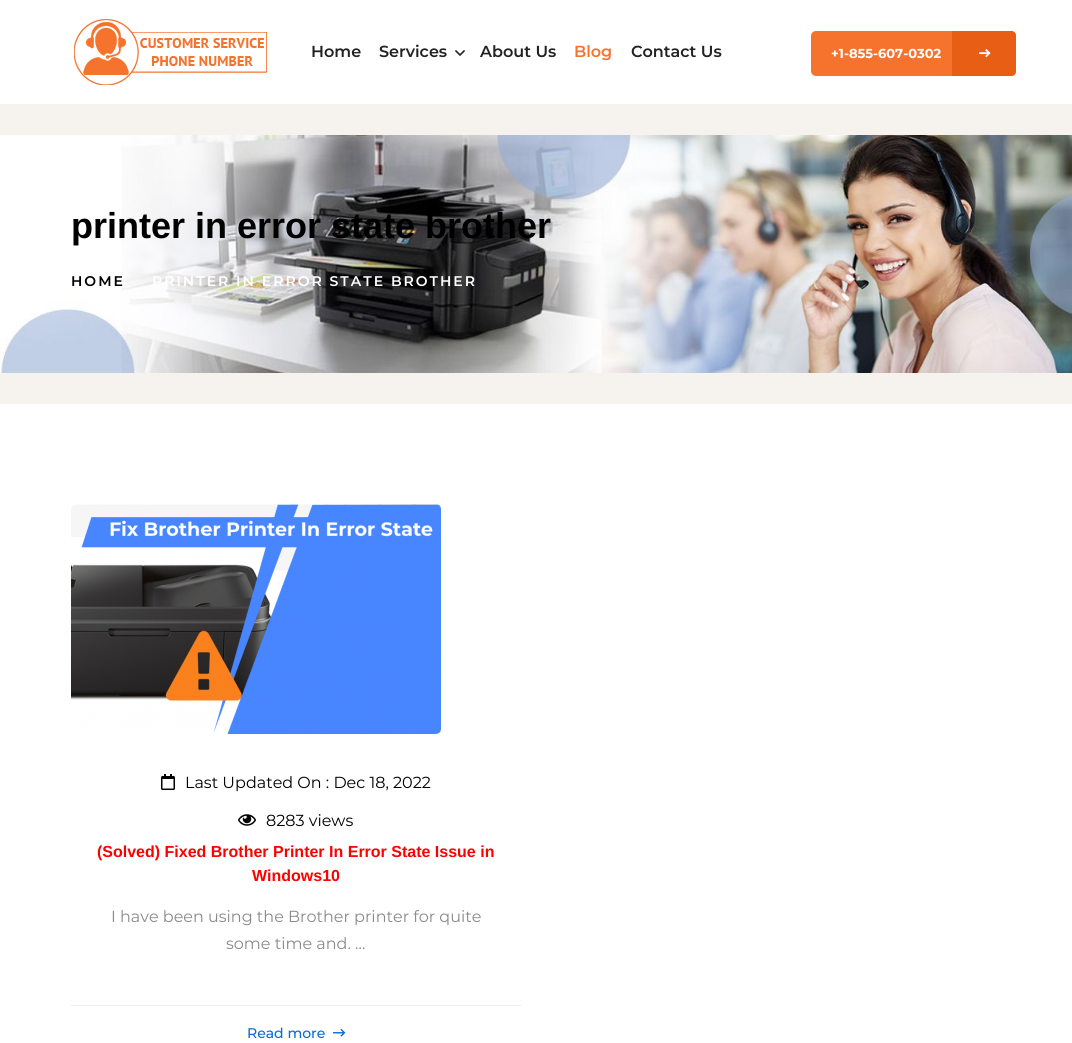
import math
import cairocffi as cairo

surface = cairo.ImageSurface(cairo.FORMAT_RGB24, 1072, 1043)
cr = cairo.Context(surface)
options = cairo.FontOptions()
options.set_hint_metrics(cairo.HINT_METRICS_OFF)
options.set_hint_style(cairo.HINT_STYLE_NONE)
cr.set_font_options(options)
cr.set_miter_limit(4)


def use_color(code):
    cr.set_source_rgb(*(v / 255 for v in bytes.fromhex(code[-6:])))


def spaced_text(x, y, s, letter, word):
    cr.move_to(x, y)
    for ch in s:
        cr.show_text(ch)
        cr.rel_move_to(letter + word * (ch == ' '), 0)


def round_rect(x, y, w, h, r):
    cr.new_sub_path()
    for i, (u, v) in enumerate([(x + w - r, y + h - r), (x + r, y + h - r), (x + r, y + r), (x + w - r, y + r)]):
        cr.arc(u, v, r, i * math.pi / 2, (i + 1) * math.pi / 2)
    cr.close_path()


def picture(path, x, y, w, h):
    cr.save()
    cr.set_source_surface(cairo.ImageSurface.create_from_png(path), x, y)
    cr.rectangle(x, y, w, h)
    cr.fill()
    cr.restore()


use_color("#ffffff")
cr.paint()
picture("img1.png", 74, 19, 193, 66)
cr.select_font_face("Montserrat SemiBold")
cr.set_font_size(16)
use_color("#222222")
cr.move_to(311, 57)
cr.show_text("Home")
cr.move_to(379, 57)
cr.show_text("Services")
picture("img2.png", 455, 50, 10, 6)
cr.move_to(480, 57)
cr.show_text("About Us")
use_color("#f6732e")
cr.move_to(574, 57)
cr.show_text("Blog")
use_color("#222222")
cr.move_to(631, 57)
cr.show_text("Contact Us")
use_color("#f6732e")
round_rect(811, 31, 205, 45, 5)
cr.fill()
cr.select_font_face("Montserrat", cairo.FONT_SLANT_NORMAL, cairo.FONT_WEIGHT_BOLD)
cr.set_font_size(13)
use_color("#ffffff")
cr.move_to(831, 58)
cr.show_text("+1-855-607-0302")
use_color("#e85e15")
cr.new_path()
cr.move_to(952, 31)
cr.line_to(1011, 31)
cr.curve_to(1014, 31, 1016, 33, 1016, 36)
cr.line_to(1016, 71)
cr.curve_to(1016, 74, 1014, 76, 1011, 76)
cr.line_to(952, 76)
cr.close_path()
cr.fill()
picture("img3.png", 979, 49, 12, 9)
use_color("#f6f2ed")
cr.rectangle(0, 104, 1072, 300)
cr.fill()
picture("img4.png", 0, 135, 1072, 238)
cr.select_font_face("Liberation Sans", cairo.FONT_SLANT_NORMAL, cairo.FONT_WEIGHT_BOLD)
cr.set_font_size(36)
use_color("#000000")
cr.move_to(71, 238)
cr.show_text("printer in error state brother")
cr.select_font_face("Montserrat SemiBold")
cr.set_font_size(14)
spaced_text(71, 286, "HOME", 2, 0)
use_color("#ffffff")
spaced_text(152, 286, "PRINTER IN ERROR STATE BROTHER", 2, 0)
picture("img5.png", 71, 504, 370, 230)
picture("img6.png", 161, 774, 14, 16)
cr.select_font_face("Montserrat")
cr.set_font_size(16)
use_color("#000000")
cr.move_to(185, 788)
cr.show_text("Last Updated On : Dec 18, 2022")
picture("img7.png", 238, 814, 18, 12)
cr.move_to(266, 826)
cr.show_text("8283 views")
cr.select_font_face("Liberation Sans", cairo.FONT_SLANT_NORMAL, cairo.FONT_WEIGHT_BOLD)
use_color("#ff0000")
cr.move_to(97, 857)
cr.show_text("(Solved) Fixed Brother Printer In Error State Issue in")
cr.move_to(252, 881)
cr.show_text("Windows10")
cr.select_font_face("Montserrat")
use_color("#8a8a8a")
cr.move_to(111, 922)
cr.show_text("I have been using the Brother printer for quite")
cr.move_to(226, 949)
cr.show_text("some time and. …")
use_color("#eeeeee")
cr.rectangle(71, 1005, 450, 1)
cr.fill()
cr.select_font_face("Montserrat Medium")
cr.set_font_size(14)
use_color("#086ad8")
cr.move_to(247, 1038)
cr.show_text("Read more")
picture("img8.png", 333, 1028, 13, 9)
surface.write_to_png("result.png")
